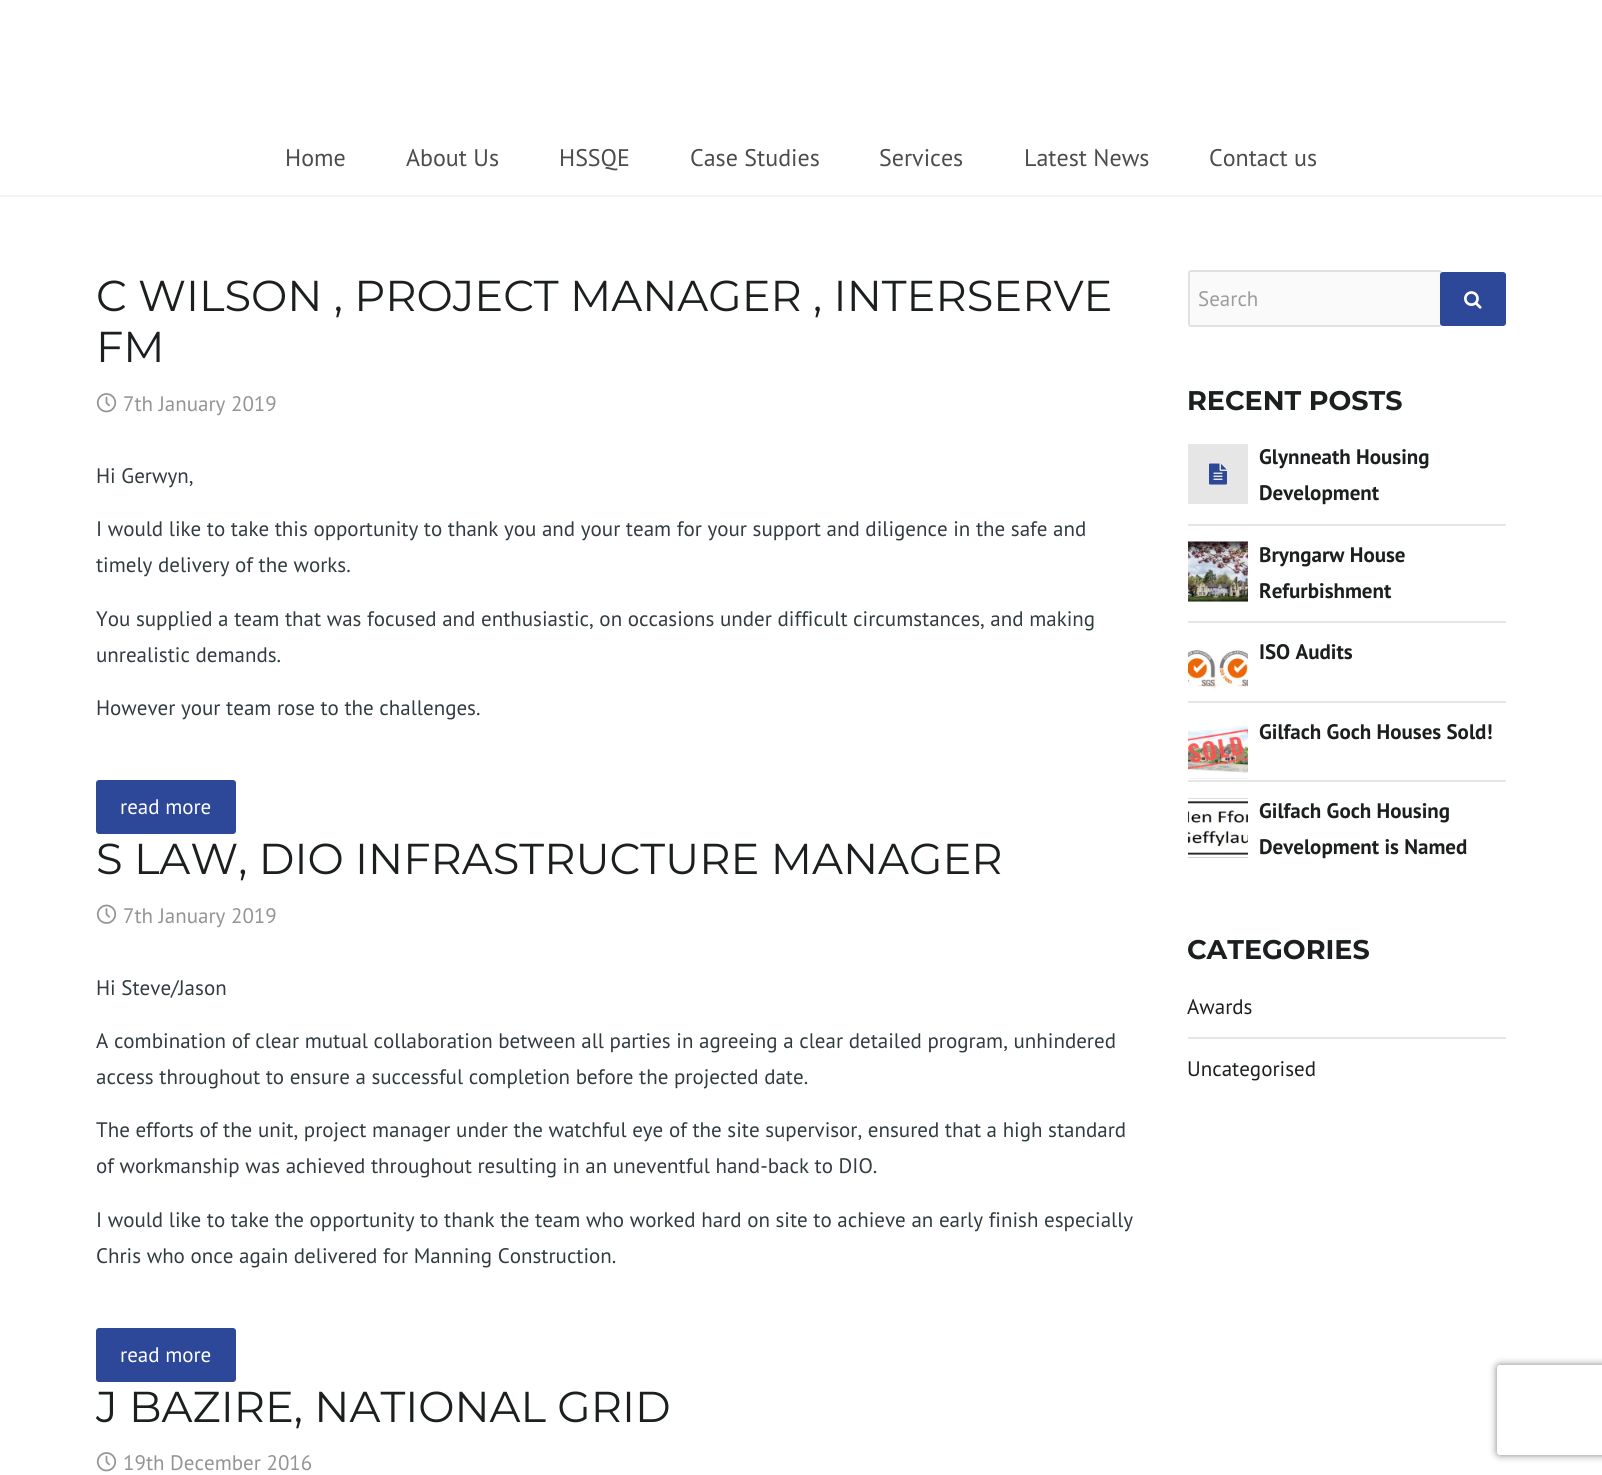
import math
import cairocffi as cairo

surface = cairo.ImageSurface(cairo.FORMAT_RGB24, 1602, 1475)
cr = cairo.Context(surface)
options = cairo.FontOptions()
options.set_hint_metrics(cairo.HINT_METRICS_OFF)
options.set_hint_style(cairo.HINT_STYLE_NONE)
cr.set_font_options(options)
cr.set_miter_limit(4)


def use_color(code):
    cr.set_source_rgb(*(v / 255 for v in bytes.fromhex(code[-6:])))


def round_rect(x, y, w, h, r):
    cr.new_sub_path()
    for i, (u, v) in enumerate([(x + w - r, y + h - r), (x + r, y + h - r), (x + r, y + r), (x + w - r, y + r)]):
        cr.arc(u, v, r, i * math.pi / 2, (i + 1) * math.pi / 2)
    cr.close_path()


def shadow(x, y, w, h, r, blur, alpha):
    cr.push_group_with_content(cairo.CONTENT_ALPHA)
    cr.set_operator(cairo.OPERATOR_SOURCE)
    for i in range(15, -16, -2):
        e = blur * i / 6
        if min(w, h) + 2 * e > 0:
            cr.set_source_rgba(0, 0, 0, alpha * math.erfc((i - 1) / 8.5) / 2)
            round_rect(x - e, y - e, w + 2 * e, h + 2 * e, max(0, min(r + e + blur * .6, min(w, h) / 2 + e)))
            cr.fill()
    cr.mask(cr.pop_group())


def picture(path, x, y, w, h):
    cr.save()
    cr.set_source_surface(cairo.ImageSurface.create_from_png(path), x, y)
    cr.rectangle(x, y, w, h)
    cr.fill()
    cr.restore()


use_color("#ffffff")
cr.paint()
use_color("#f3f3f3")
cr.rectangle(0, 195, 1602, 2)
cr.fill()
cr.select_font_face("PT Sans")
cr.set_font_size(24)
use_color("#4c4c4c")
cr.move_to(285, 166)
cr.show_text("Home")
cr.move_to(406, 166)
cr.show_text("About Us")
cr.move_to(559, 166)
cr.show_text("HSSQE")
cr.move_to(690, 166)
cr.show_text("Case Studies")
cr.move_to(879, 166)
cr.show_text("Services")
cr.move_to(1024, 166)
cr.show_text("Latest News")
cr.move_to(1209, 166)
cr.show_text("Contact us")
cr.select_font_face("Montserrat")
cr.set_font_size(43.2)
use_color("#1b1f20")
cr.move_to(96, 311)
cr.show_text("C WILSON , PROJECT MANAGER , INTERSERVE")
cr.move_to(96, 362)
cr.show_text("FM")
picture("img1.png", 96, 393, 21, 20)
cr.select_font_face("PT Sans")
cr.set_font_size(21)
use_color("#959494")
cr.move_to(123, 411)
cr.show_text("7th January 2019")
use_color("#303c40")
cr.move_to(96, 483)
cr.show_text("Hi Gerwyn,")
cr.move_to(96, 536)
cr.show_text("I would like to take this opportunity to thank you and your team for your support and diligence in the safe and")
cr.move_to(96, 572)
cr.show_text("timely delivery of the works.")
cr.move_to(96, 626)
cr.show_text("You supplied a team that was focused and enthusiastic, on occasions under difficult circumstances, and making")
cr.move_to(96, 662)
cr.show_text("unrealistic demands.")
cr.move_to(96, 715)
cr.show_text("However your team rose to the challenges.")
use_color("#2d4799")
round_rect(96, 780, 140, 54, 3)
cr.fill()
use_color("#ffffff")
cr.move_to(120, 814)
cr.show_text("read more")
cr.select_font_face("Montserrat")
cr.set_font_size(43.2)
use_color("#1b1f20")
cr.move_to(96, 874)
cr.show_text("S LAW, DIO INFRASTRUCTURE MANAGER")
picture("img2.png", 96, 904, 21, 20)
cr.select_font_face("PT Sans")
cr.set_font_size(21)
use_color("#959494")
cr.move_to(123, 923)
cr.show_text("7th January 2019")
use_color("#303c40")
cr.move_to(96, 995)
cr.show_text("Hi Steve/Jason")
cr.move_to(96, 1048)
cr.show_text("A combination of clear mutual collaboration between all parties in agreeing a clear detailed program, unhindered")
cr.move_to(96, 1084)
cr.show_text("access throughout to ensure a successful completion before the projected date.")
cr.move_to(96, 1137)
cr.show_text("The efforts of the unit, project manager under the watchful eye of the site supervisor, ensured that a high standard")
cr.move_to(96, 1173)
cr.show_text("of workmanship was achieved throughout resulting in an uneventful hand-back to DIO.")
cr.move_to(96, 1227)
cr.show_text("I would like to take the opportunity to thank the team who worked hard on site to achieve an early finish especially")
cr.move_to(96, 1263)
cr.show_text("Chris who once again delivered for Manning Construction.")
use_color("#2d4799")
round_rect(96, 1328, 140, 54, 3)
cr.fill()
use_color("#ffffff")
cr.move_to(120, 1362)
cr.show_text("read more")
cr.select_font_face("Montserrat")
cr.set_font_size(43.2)
use_color("#1b1f20")
cr.move_to(96, 1422)
cr.show_text("J BAZIRE, NATIONAL GRID")
picture("img1.png", 96, 1452, 21, 20)
cr.select_font_face("PT Sans")
cr.set_font_size(21)
use_color("#959494")
cr.move_to(123, 1470)
cr.show_text("19th December 2016")
use_color("#fafafa")
round_rect(1189, 271, 252, 55, 2)
cr.fill_preserve()
use_color("#e1e1e1")
cr.stroke()
use_color("#9c9c9c")
cr.move_to(1198, 306)
cr.show_text("Search")
use_color("#2d4799")
round_rect(1440, 272, 66, 54, 3)
cr.fill()
picture("img3.png", 1464, 291, 18, 18)
cr.select_font_face("Montserrat", cairo.FONT_SLANT_NORMAL, cairo.FONT_WEIGHT_BOLD)
cr.set_font_size(27)
use_color("#1b1f20")
cr.move_to(1187, 410)
cr.show_text("RECENT POSTS")
use_color("#e6e6e6")
cr.rectangle(1188, 524, 318, 2)
cr.fill()
cr.rectangle(1188, 444, 60, 60)
cr.fill()
picture("img4.png", 1209, 463, 18, 22)
cr.select_font_face("PT Sans", cairo.FONT_SLANT_NORMAL, cairo.FONT_WEIGHT_BOLD)
cr.set_font_size(21)
use_color("#1b1f20")
cr.move_to(1259, 464)
cr.show_text("Glynneath Housing")
cr.move_to(1259, 500)
cr.show_text("Development")
use_color("#e6e6e6")
cr.rectangle(1188, 621, 318, 2)
cr.fill()
cr.rectangle(1188, 601, 60, 1)
cr.fill()
picture("img5.png", 1188, 541, 60, 61)
use_color("#1b1f20")
cr.move_to(1259, 562)
cr.show_text("Bryngarw House")
cr.move_to(1259, 598)
cr.show_text("Refurbishment")
use_color("#e6e6e6")
cr.rectangle(1188, 701, 318, 2)
cr.fill()
picture("img6.png", 1188, 639, 60, 60)
use_color("#1b1f20")
cr.move_to(1259, 659)
cr.show_text("ISO Audits")
use_color("#e6e6e6")
cr.rectangle(1188, 780, 318, 2)
cr.fill()
cr.rectangle(1188, 778, 60, 1)
cr.fill()
picture("img7.png", 1188, 719, 60, 60)
use_color("#1b1f20")
cr.move_to(1259, 739)
cr.show_text("Gilfach Goch Houses Sold!")
picture("img8.png", 1188, 798, 60, 60)
cr.move_to(1259, 818)
cr.show_text("Gilfach Goch Housing")
cr.move_to(1259, 854)
cr.show_text("Development is Named")
cr.select_font_face("Montserrat", cairo.FONT_SLANT_NORMAL, cairo.FONT_WEIGHT_BOLD)
cr.set_font_size(27)
cr.move_to(1187, 959)
cr.show_text("CATEGORIES")
use_color("#e6e6e6")
cr.rectangle(1188, 1037, 318, 2)
cr.fill()
cr.select_font_face("PT Sans")
cr.set_font_size(21)
use_color("#1b1f20")
cr.move_to(1187, 1014)
cr.show_text("Awards")
cr.move_to(1187, 1076)
cr.show_text("Uncategorised")
cr.save()
cr.set_fill_rule(cairo.FILL_RULE_EVEN_ODD)
cr.new_path()
cr.move_to(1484, 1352)
cr.line_to(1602, 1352)
cr.line_to(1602, 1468)
cr.line_to(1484, 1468)
cr.close_path()
cr.move_to(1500, 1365)
cr.line_to(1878, 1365)
cr.curve_to(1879.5, 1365, 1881, 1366.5, 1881, 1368)
cr.line_to(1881, 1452)
cr.curve_to(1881, 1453.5, 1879.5, 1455, 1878, 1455)
cr.line_to(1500, 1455)
cr.curve_to(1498.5, 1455, 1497, 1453.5, 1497, 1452)
cr.line_to(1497, 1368)
cr.curve_to(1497, 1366.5, 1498.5, 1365, 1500, 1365)
cr.close_path()
cr.clip()
use_color("#808080")
shadow(1497, 1365, 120, 90, 3, 4, 1)
cr.restore()
surface.write_to_png("result.png")
